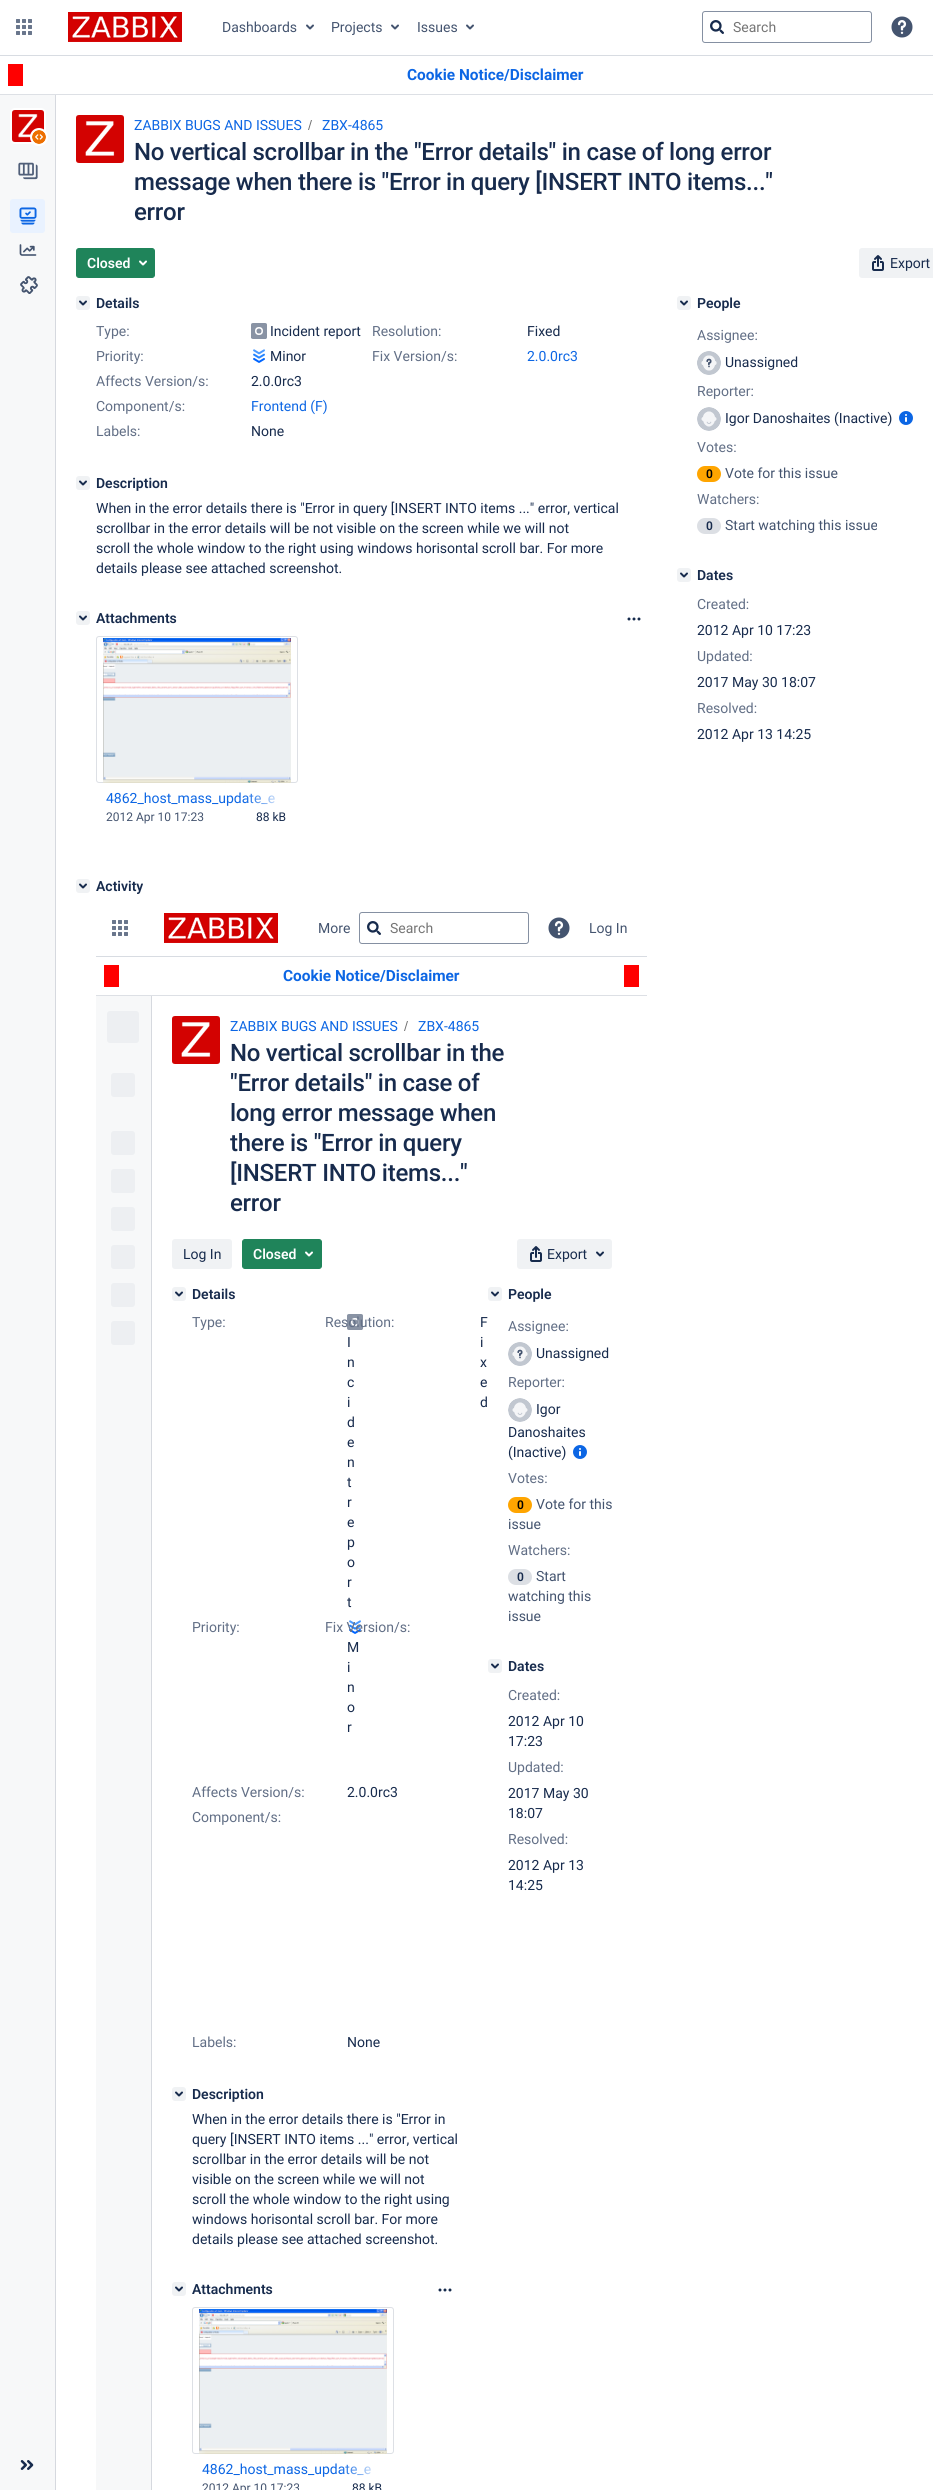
import math
import cairocffi as cairo

surface = cairo.ImageSurface(cairo.FORMAT_RGB24, 933, 2490)
cr = cairo.Context(surface)
options = cairo.FontOptions()
options.set_hint_metrics(cairo.HINT_METRICS_OFF)
options.set_hint_style(cairo.HINT_STYLE_NONE)
cr.set_font_options(options)
cr.set_miter_limit(4)


def use_color(code):
    cr.set_source_rgb(*(v / 255 for v in bytes.fromhex(code[-6:])))


def spaced_text(x, y, s, letter, word):
    cr.move_to(x, y)
    for ch in s:
        cr.show_text(ch)
        cr.rel_move_to(letter + word * (ch == ' '), 0)


def round_rect(x, y, w, h, r):
    cr.new_sub_path()
    for i, (u, v) in enumerate([(x + w - r, y + h - r), (x + r, y + h - r), (x + r, y + r), (x + w - r, y + r)]):
        cr.arc(u, v, r, i * math.pi / 2, (i + 1) * math.pi / 2)
    cr.close_path()


def picture(path, x, y, w, h):
    cr.save()
    cr.set_source_surface(cairo.ImageSurface.create_from_png(path), x, y)
    cr.rectangle(x, y, w, h)
    cr.fill()
    cr.restore()


use_color("#ffffff")
cr.paint()
use_color("#d8dce2")
cr.rectangle(0, 55, 933, 1)
cr.fill()
picture("img1.png", 16, 19, 16, 16)
picture("img2.png", 68, 12, 114, 30)
cr.select_font_face("Roboto")
cr.set_font_size(14)
use_color("#44546f")
cr.move_to(222, 32)
cr.show_text("Dashboards")
picture("img3.png", 306, 24, 8, 6)
cr.move_to(331, 32)
cr.show_text("Projects")
picture("img3.png", 391, 24, 8, 6)
cr.move_to(417, 32)
cr.show_text("Issues")
picture("img3.png", 466, 24, 8, 6)
round_rect(702.5, 11.5, 169, 31, 2.5)
use_color("#8590a2")
cr.set_line_width(1)
cr.stroke()
picture("img4.png", 710, 20, 14, 14)
use_color("#757575")
cr.move_to(733, 32)
cr.show_text("Search")
picture("img5.png", 891, 16, 22, 22)
use_color("#dde0e5")
cr.rectangle(0, 94, 933, 1)
cr.fill()
use_color("#ff0000")
cr.rectangle(8, 64, 15, 22)
cr.fill()
cr.select_font_face("Roboto", cairo.FONT_SLANT_NORMAL, cairo.FONT_WEIGHT_BOLD)
cr.set_font_size(15.4)
use_color("#0c66e4")
cr.move_to(407, 80)
cr.show_text("Cookie Notice/Disclaimer")
use_color("#f7f8f9")
cr.rectangle(0, 95, 55, 2395)
cr.fill()
use_color("#d6d9df")
cr.rectangle(55, 95, 1, 2395)
cr.fill()
round_rect(11, 109, 34, 34, 4)
use_color("#ffffff")
cr.set_line_width(2)
cr.stroke()
picture("img6.png", 12, 110, 32, 32)
cr.arc(39, 137, 9, 0, 2 * math.pi)
cr.fill()
picture("img7.png", 32, 130, 14, 14)
picture("img8.png", 18, 162, 20, 18)
use_color("#e9f2ff")
round_rect(10, 199, 35, 34, 3)
cr.fill()
picture("img9.png", 19, 207, 18, 18)
picture("img10.png", 19, 244, 18, 12)
picture("img11.png", 20, 276, 18, 18)
picture("img12.png", 20, 2460, 14, 10)
picture("img13.png", 76, 115, 48, 48)
cr.select_font_face("Roboto")
cr.set_font_size(14)
use_color("#0c66e4")
cr.move_to(134, 130)
cr.show_text("ZABBIX BUGS AND ISSUES")
use_color("#707070")
cr.new_path()
cr.move_to(309, 130)
cr.line_to(312, 120)
cr.line_to(311, 120)
cr.line_to(308, 130)
cr.close_path()
cr.fill()
use_color("#0c66e4")
cr.move_to(322, 130)
cr.show_text("ZBX-4865")
cr.select_font_face("Roboto Medium")
cr.set_font_size(24)
use_color("#172b4d")
spaced_text(134, 160, "No vertical scrollbar in the \"Error details\" in case of long error", -0.25, 0)
spaced_text(134, 190, "message when there is \"Error in query [INSERT INTO items...\"", -0.25, 0)
spaced_text(134, 220, "error", -0.25, 0)
use_color("#1f845a")
round_rect(76.5, 248.5, 78, 29, 2.5)
cr.fill_preserve()
cr.set_line_width(1)
cr.stroke()
cr.select_font_face("Roboto SemiBold")
cr.set_font_size(14)
use_color("#ffffff")
cr.move_to(87, 268)
cr.show_text("Closed")
picture("img14.png", 139, 260, 8, 6)
use_color("#f0f2f4")
round_rect(859, 248, 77, 30, 3)
cr.fill()
picture("img15.png", 872, 255, 12, 16)
cr.select_font_face("Roboto")
use_color("#172b4d")
cr.move_to(890, 268)
cr.show_text("Export")
use_color("#f0f2f4")
round_rect(76, 296, 14, 14, 3)
cr.fill()
picture("img16.png", 79, 300, 8, 6)
cr.select_font_face("Roboto SemiBold")
use_color("#172b4d")
cr.move_to(96, 308)
cr.show_text("Details")
cr.select_font_face("Roboto")
use_color("#626f86")
cr.move_to(96, 336)
cr.show_text("Type:")
picture("img17.png", 251, 323, 16, 16)
use_color("#172b4d")
cr.move_to(270, 336)
cr.show_text("Incident report")
use_color("#626f86")
cr.move_to(372, 336)
cr.show_text("Resolution:")
use_color("#172b4d")
cr.move_to(527, 336)
cr.show_text("Fixed")
use_color("#626f86")
cr.move_to(96, 361)
cr.show_text("Priority:")
picture("img18.png", 253, 349, 12, 14)
use_color("#172b4d")
cr.move_to(270, 361)
cr.show_text("Minor")
use_color("#626f86")
cr.move_to(372, 361)
cr.show_text("Fix Version/s:")
use_color("#0c66e4")
cr.move_to(527, 361)
cr.show_text("2.0.0rc3")
use_color("#626f86")
cr.move_to(96, 386)
cr.show_text("Affects Version/s:")
use_color("#172b4d")
cr.move_to(251, 386)
cr.show_text("2.0.0rc3")
use_color("#626f86")
cr.move_to(96, 411)
cr.show_text("Component/s:")
use_color("#0c66e4")
cr.move_to(251, 411)
cr.show_text("Frontend (F)")
use_color("#626f86")
cr.move_to(96, 436)
cr.show_text("Labels:")
use_color("#172b4d")
cr.move_to(251, 436)
cr.show_text("None")
use_color("#f0f2f4")
round_rect(76, 476, 14, 14, 3)
cr.fill()
picture("img16.png", 79, 480, 8, 6)
cr.select_font_face("Roboto SemiBold")
use_color("#172b4d")
cr.move_to(96, 488)
cr.show_text("Description")
cr.select_font_face("Roboto")
cr.move_to(96, 513)
cr.show_text("When in the error details there is \"Error in query [INSERT INTO items ...\" error, vertical")
cr.move_to(96, 533)
cr.show_text("scrollbar in the error details will be not visible on the screen while we will not")
cr.move_to(96, 553)
cr.show_text("scroll the whole window to the right using windows horisontal scroll bar. For more")
cr.move_to(96, 573)
cr.show_text("details please see attached screenshot.")
use_color("#f0f2f4")
round_rect(76, 611, 14, 14, 3)
cr.fill()
picture("img16.png", 79, 615, 8, 6)
cr.select_font_face("Roboto SemiBold")
use_color("#172b4d")
cr.move_to(96, 623)
cr.show_text("Attachments")
picture("img19.png", 627, 617, 14, 4)
round_rect(96.5, 636.5, 201, 146, 2.5)
use_color("#dde0e5")
cr.stroke()
picture("img20.png", 103, 638, 188, 145)
cr.select_font_face("Roboto")
use_color("#0c66e4")
cr.move_to(106, 803)
cr.show_text("4862_host_mass_update_e")
gradient = cairo.LinearGradient(244, 799, 286, 799)
gradient.add_color_stop_rgba(0, 1, 1, 1, 0)
gradient.add_color_stop_rgba(1, 1, 1, 1, 1)
cr.set_source(gradient)
cr.rectangle(245, 793, 30, 12)
cr.fill()
cr.set_font_size(12)
use_color("#44546f")
cr.move_to(106, 821)
cr.show_text("2012 Apr 10 17:23")
use_color("#172b4d")
cr.move_to(256, 821)
cr.show_text("88 kB")
use_color("#f0f2f4")
round_rect(76, 879, 14, 14, 3)
cr.fill()
picture("img16.png", 79, 883, 8, 6)
cr.select_font_face("Roboto SemiBold")
cr.set_font_size(14)
use_color("#172b4d")
cr.move_to(96, 891)
cr.show_text("Activity")
use_color("#d8dce2")
cr.rectangle(96, 956, 551, 1)
cr.fill()
picture("img1.png", 112, 920, 16, 16)
picture("img2.png", 164, 913, 114, 30)
cr.select_font_face("Roboto")
use_color("#44546f")
cr.move_to(318, 933)
cr.show_text("More")
round_rect(359.5, 912.5, 169, 31, 2.5)
use_color("#8590a2")
cr.stroke()
picture("img4.png", 367, 921, 14, 14)
use_color("#757575")
cr.move_to(390, 933)
cr.show_text("Search")
picture("img5.png", 548, 917, 22, 22)
use_color("#44546f")
cr.move_to(589, 933)
cr.show_text("Log In")
use_color("#dde0e5")
cr.rectangle(96, 995, 551, 1)
cr.fill()
use_color("#ff0000")
cr.rectangle(624, 965, 15, 22)
cr.fill()
cr.rectangle(104, 965, 15, 22)
cr.fill()
cr.select_font_face("Roboto", cairo.FONT_SLANT_NORMAL, cairo.FONT_WEIGHT_BOLD)
cr.set_font_size(15.4)
use_color("#0c66e4")
cr.move_to(283, 981)
cr.show_text("Cookie Notice/Disclaimer")
use_color("#f7f8f9")
cr.rectangle(96, 996, 55, 1494)
cr.fill()
use_color("#d6d9df")
cr.rectangle(151, 996, 1, 1494)
cr.fill()
use_color("#edeff2")
round_rect(107, 1011, 32, 32, 3)
cr.fill()
round_rect(111, 1073, 24, 24, 3)
cr.fill()
round_rect(111, 1131, 24, 24, 3)
cr.fill()
round_rect(111, 1169, 24, 24, 3)
cr.fill()
round_rect(111, 1207, 24, 24, 3)
cr.fill()
round_rect(111, 1245, 24, 24, 3)
cr.fill()
round_rect(111, 1283, 24, 24, 3)
cr.fill()
round_rect(111, 1321, 24, 24, 3)
cr.fill()
picture("img13.png", 172, 1016, 48, 48)
cr.select_font_face("Roboto")
cr.set_font_size(14)
use_color("#0c66e4")
cr.move_to(230, 1031)
cr.show_text("ZABBIX BUGS AND ISSUES")
use_color("#707070")
cr.new_path()
cr.move_to(405, 1031)
cr.line_to(408, 1021)
cr.line_to(407, 1021)
cr.line_to(404, 1031)
cr.close_path()
cr.fill()
use_color("#0c66e4")
cr.move_to(418, 1031)
cr.show_text("ZBX-4865")
cr.select_font_face("Roboto Medium")
cr.set_font_size(24)
use_color("#172b4d")
spaced_text(230, 1061, "No vertical scrollbar in the", -0.25, 0)
spaced_text(230, 1091, "\"Error details\" in case of", -0.25, 0)
spaced_text(230, 1121, "long error message when", -0.25, 0)
spaced_text(230, 1151, "there is \"Error in query", -0.25, 0)
spaced_text(230, 1181, "[INSERT INTO items...\"", -0.25, 0)
spaced_text(230, 1211, "error", -0.25, 0)
use_color("#f0f2f4")
round_rect(172, 1239, 60, 30, 3)
cr.fill()
cr.select_font_face("Roboto")
cr.set_font_size(14)
use_color("#172b4d")
cr.move_to(183, 1259)
cr.show_text("Log In")
use_color("#1f845a")
round_rect(242.5, 1239.5, 79, 29, 2.5)
cr.fill_preserve()
cr.stroke()
cr.select_font_face("Roboto SemiBold")
use_color("#ffffff")
cr.move_to(253, 1259)
cr.show_text("Closed")
picture("img14.png", 305, 1251, 8, 6)
use_color("#f0f2f4")
round_rect(517, 1239, 95, 30, 3)
cr.fill()
picture("img15.png", 530, 1246, 12, 16)
cr.select_font_face("Roboto")
use_color("#172b4d")
cr.move_to(547, 1259)
cr.show_text("Export")
picture("img21.png", 596, 1251, 8, 6)
use_color("#f0f2f4")
round_rect(172, 1287, 14, 14, 3)
cr.fill()
picture("img16.png", 175, 1291, 8, 6)
cr.select_font_face("Roboto SemiBold")
use_color("#172b4d")
cr.move_to(192, 1299)
cr.show_text("Details")
cr.select_font_face("Roboto")
use_color("#626f86")
cr.move_to(192, 1327)
cr.show_text("Type:")
picture("img22.png", 347, 1314, 16, 16)
use_color("#172b4d")
cr.move_to(347, 1347)
cr.show_text("I")
cr.move_to(347, 1367)
cr.show_text("n")
cr.move_to(347, 1387)
cr.show_text("c")
cr.move_to(347, 1407)
cr.show_text("i")
cr.move_to(347, 1427)
cr.show_text("d")
cr.move_to(347, 1447)
cr.show_text("e")
cr.move_to(347, 1467)
cr.show_text("n")
cr.move_to(347, 1487)
cr.show_text("t")
cr.move_to(347, 1507)
cr.show_text("r")
cr.move_to(347, 1527)
cr.show_text("e")
cr.move_to(347, 1547)
cr.show_text("p")
cr.move_to(347, 1567)
cr.show_text("o")
cr.move_to(347, 1587)
cr.show_text("r")
cr.move_to(347, 1607)
cr.show_text("t")
use_color("#626f86")
cr.move_to(325, 1327)
cr.show_text("Resolution:")
use_color("#172b4d")
cr.move_to(480, 1327)
cr.show_text("F")
cr.move_to(480, 1347)
cr.show_text("i")
cr.move_to(480, 1367)
cr.show_text("x")
cr.move_to(480, 1387)
cr.show_text("e")
cr.move_to(480, 1407)
cr.show_text("d")
use_color("#626f86")
cr.move_to(192, 1632)
cr.show_text("Priority:")
picture("img18.png", 349, 1620, 12, 14)
use_color("#172b4d")
cr.move_to(347, 1652)
cr.show_text("M")
cr.move_to(347, 1672)
cr.show_text("i")
cr.move_to(347, 1692)
cr.show_text("n")
cr.move_to(347, 1712)
cr.show_text("o")
cr.move_to(347, 1732)
cr.show_text("r")
use_color("#626f86")
cr.move_to(325, 1632)
cr.show_text("Fix Version/s:")
cr.move_to(192, 1797)
cr.show_text("Affects Version/s:")
use_color("#172b4d")
cr.move_to(347, 1797)
cr.show_text("2.0.0rc3")
use_color("#626f86")
cr.move_to(192, 1822)
cr.show_text("Component/s:")
cr.move_to(192, 2047)
cr.show_text("Labels:")
use_color("#172b4d")
cr.move_to(347, 2047)
cr.show_text("None")
use_color("#f0f2f4")
round_rect(172, 2087, 14, 14, 3)
cr.fill()
picture("img16.png", 175, 2091, 8, 6)
cr.select_font_face("Roboto SemiBold")
use_color("#172b4d")
cr.move_to(192, 2099)
cr.show_text("Description")
cr.select_font_face("Roboto")
cr.move_to(192, 2124)
cr.show_text("When in the error details there is \"Error in")
cr.move_to(192, 2144)
cr.show_text("query [INSERT INTO items ...\" error, vertical")
cr.move_to(192, 2164)
cr.show_text("scrollbar in the error details will be not")
cr.move_to(192, 2184)
cr.show_text("visible on the screen while we will not")
cr.move_to(192, 2204)
cr.show_text("scroll the whole window to the right using")
cr.move_to(192, 2224)
cr.show_text("windows horisontal scroll bar. For more")
cr.move_to(192, 2244)
cr.show_text("details please see attached screenshot.")
use_color("#f0f2f4")
round_rect(172, 2282, 14, 14, 3)
cr.fill()
picture("img16.png", 175, 2286, 8, 6)
cr.select_font_face("Roboto SemiBold")
use_color("#172b4d")
cr.move_to(192, 2294)
cr.show_text("Attachments")
picture("img19.png", 438, 2288, 14, 4)
round_rect(192.5, 2307.5, 201, 146, 2.5)
use_color("#dde0e5")
cr.stroke()
picture("img20.png", 199, 2309, 188, 145)
cr.select_font_face("Roboto")
use_color("#0c66e4")
cr.move_to(202, 2474)
cr.show_text("4862_host_mass_update_e")
gradient = cairo.LinearGradient(340, 2470, 382, 2470)
gradient.add_color_stop_rgba(0, 1, 1, 1, 0)
gradient.add_color_stop_rgba(1, 1, 1, 1, 1)
cr.set_source(gradient)
cr.rectangle(341, 2464, 30, 12)
cr.fill()
cr.set_font_size(12)
use_color("#44546f")
cr.move_to(202, 2492)
cr.show_text("2012 Apr 10 17:23")
use_color("#172b4d")
cr.move_to(352, 2492)
cr.show_text("88 kB")
use_color("#f0f2f4")
round_rect(488, 1287, 14, 14, 3)
cr.fill()
picture("img16.png", 491, 1291, 8, 6)
cr.select_font_face("Roboto SemiBold")
cr.set_font_size(14)
use_color("#172b4d")
cr.move_to(508, 1299)
cr.show_text("People")
cr.select_font_face("Roboto")
use_color("#626f86")
cr.move_to(508, 1331)
cr.show_text("Assignee:")
picture("img23.png", 508, 1342, 24, 24)
use_color("#172b4d")
cr.move_to(536, 1358)
cr.show_text("Unassigned")
use_color("#626f86")
cr.move_to(508, 1387)
cr.show_text("Reporter:")
picture("img24.png", 508, 1398, 24, 24)
use_color("#172b4d")
cr.move_to(536, 1414)
cr.show_text("Igor")
cr.move_to(508, 1437)
cr.show_text("Danoshaites")
cr.move_to(508, 1457)
cr.show_text("(Inactive)")
picture("img25.png", 573, 1445, 14, 14)
use_color("#626f86")
cr.move_to(508, 1483)
cr.show_text("Votes:")
use_color("#ffa500")
round_rect(508, 1497, 24, 16, 8)
cr.fill()
cr.select_font_face("Roboto SemiBold")
cr.set_font_size(12)
use_color("#000000")
cr.move_to(517, 1509)
cr.show_text("0")
cr.select_font_face("Roboto")
cr.set_font_size(14)
use_color("#44546f")
cr.move_to(536, 1509)
cr.show_text("Vote for this")
cr.move_to(508, 1529)
cr.show_text("issue")
use_color("#626f86")
cr.move_to(508, 1555)
cr.show_text("Watchers:")
use_color("#dcdfe4")
round_rect(508, 1569, 24, 16, 8)
cr.fill()
cr.select_font_face("Roboto SemiBold")
cr.set_font_size(12)
use_color("#172b4d")
cr.move_to(517, 1581)
cr.show_text("0")
cr.select_font_face("Roboto")
cr.set_font_size(14)
use_color("#44546f")
cr.move_to(536, 1581)
cr.show_text("Start")
cr.move_to(508, 1601)
cr.show_text("watching this")
cr.move_to(508, 1621)
cr.show_text("issue")
use_color("#f0f2f4")
round_rect(488, 1659, 14, 14, 3)
cr.fill()
picture("img16.png", 491, 1663, 8, 6)
cr.select_font_face("Roboto SemiBold")
use_color("#172b4d")
cr.move_to(508, 1671)
cr.show_text("Dates")
cr.select_font_face("Roboto")
use_color("#626f86")
cr.move_to(508, 1700)
cr.show_text("Created:")
use_color("#172b4d")
cr.move_to(508, 1726)
cr.show_text("2012 Apr 10")
cr.move_to(508, 1746)
cr.show_text("17:23")
use_color("#626f86")
cr.move_to(508, 1772)
cr.show_text("Updated:")
use_color("#172b4d")
cr.move_to(508, 1798)
cr.show_text("2017 May 30")
cr.move_to(508, 1818)
cr.show_text("18:07")
use_color("#626f86")
cr.move_to(508, 1844)
cr.show_text("Resolved:")
use_color("#172b4d")
cr.move_to(508, 1870)
cr.show_text("2012 Apr 13")
cr.move_to(508, 1890)
cr.show_text("14:25")
use_color("#f0f2f4")
round_rect(677, 296, 14, 14, 3)
cr.fill()
picture("img16.png", 680, 300, 8, 6)
cr.select_font_face("Roboto SemiBold")
use_color("#172b4d")
cr.move_to(697, 308)
cr.show_text("People")
cr.select_font_face("Roboto")
use_color("#626f86")
cr.move_to(697, 340)
cr.show_text("Assignee:")
picture("img26.png", 697, 351, 24, 24)
use_color("#172b4d")
cr.move_to(725, 367)
cr.show_text("Unassigned")
use_color("#626f86")
cr.move_to(697, 396)
cr.show_text("Reporter:")
picture("img27.png", 697, 407, 24, 24)
use_color("#172b4d")
cr.move_to(725, 423)
cr.show_text("Igor Danoshaites (Inactive)")
picture("img25.png", 899, 411, 14, 14)
use_color("#626f86")
cr.move_to(697, 452)
cr.show_text("Votes:")
use_color("#ffa500")
round_rect(697, 466, 24, 16, 8)
cr.fill()
cr.select_font_face("Roboto SemiBold")
cr.set_font_size(12)
use_color("#000000")
cr.move_to(706, 478)
cr.show_text("0")
cr.select_font_face("Roboto")
cr.set_font_size(14)
use_color("#44546f")
cr.move_to(725, 478)
cr.show_text("Vote for this issue")
use_color("#626f86")
cr.move_to(697, 504)
cr.show_text("Watchers:")
use_color("#dcdfe4")
round_rect(697, 518, 24, 16, 8)
cr.fill()
cr.select_font_face("Roboto SemiBold")
cr.set_font_size(12)
use_color("#172b4d")
cr.move_to(706, 530)
cr.show_text("0")
cr.select_font_face("Roboto")
cr.set_font_size(14)
use_color("#44546f")
cr.move_to(725, 530)
cr.show_text("Start watching this issue")
use_color("#f0f2f4")
round_rect(677, 568, 14, 14, 3)
cr.fill()
picture("img16.png", 680, 572, 8, 6)
cr.select_font_face("Roboto SemiBold")
use_color("#172b4d")
cr.move_to(697, 580)
cr.show_text("Dates")
cr.select_font_face("Roboto")
use_color("#626f86")
cr.move_to(697, 609)
cr.show_text("Created:")
use_color("#172b4d")
cr.move_to(697, 635)
cr.show_text("2012 Apr 10 17:23")
use_color("#626f86")
cr.move_to(697, 661)
cr.show_text("Updated:")
use_color("#172b4d")
cr.move_to(697, 687)
cr.show_text("2017 May 30 18:07")
use_color("#626f86")
cr.move_to(697, 713)
cr.show_text("Resolved:")
use_color("#172b4d")
cr.move_to(697, 739)
cr.show_text("2012 Apr 13 14:25")
surface.write_to_png("result.png")
